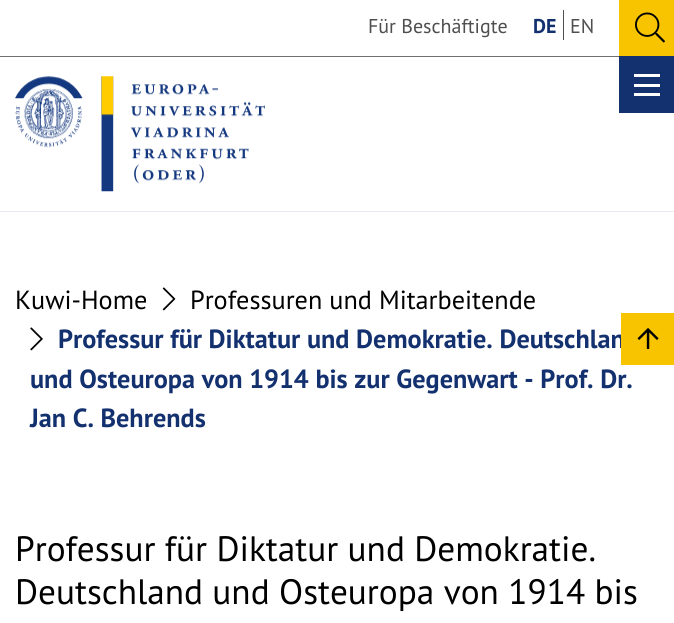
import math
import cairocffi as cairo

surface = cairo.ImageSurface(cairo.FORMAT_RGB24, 674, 623)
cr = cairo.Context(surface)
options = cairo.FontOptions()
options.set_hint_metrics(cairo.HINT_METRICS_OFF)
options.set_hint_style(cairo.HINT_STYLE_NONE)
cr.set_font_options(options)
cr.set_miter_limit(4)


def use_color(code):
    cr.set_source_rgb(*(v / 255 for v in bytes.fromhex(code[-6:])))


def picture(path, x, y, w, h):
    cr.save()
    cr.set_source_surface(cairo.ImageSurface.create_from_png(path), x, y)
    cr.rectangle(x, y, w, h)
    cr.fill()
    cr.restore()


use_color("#ffffff")
cr.paint()
use_color("#e7eaf0")
cr.rectangle(0, 211, 674, 1)
cr.fill()
cr.select_font_face("PT Sans")
cr.set_font_size(20)
use_color("#4f4e4f")
cr.move_to(368, 33)
cr.show_text("Für Beschäftigte")
cr.select_font_face("PT Sans", cairo.FONT_SLANT_NORMAL, cairo.FONT_WEIGHT_BOLD)
use_color("#14316f")
cr.move_to(533, 33)
cr.show_text("DE")
use_color("#4f4e4f")
cr.rectangle(563, 10, 1, 30)
cr.fill()
cr.select_font_face("PT Sans")
cr.move_to(570, 33)
cr.show_text("EN")
use_color("#f8c400")
cr.rectangle(619, 0, 55, 56)
cr.fill()
picture("img1.png", 635, 12, 30, 31)
use_color("#707070")
cr.rectangle(0, 56, 619, 1)
cr.fill()
picture("img2.png", 15, 76, 250, 116)
use_color("#14316f")
cr.rectangle(619, 56, 55, 57)
cr.fill()
use_color("#ffffff")
cr.rectangle(634, 74, 26, 3)
cr.fill()
cr.rectangle(634, 84, 26, 3)
cr.fill()
cr.rectangle(634, 93, 26, 3)
cr.fill()
cr.set_font_size(26.25)
use_color("#000000")
cr.move_to(15, 309)
cr.show_text("Kuwi-Home")
picture("img3.png", 162, 287, 14, 24)
cr.move_to(190, 309)
cr.show_text("Professuren und Mitarbeitende")
picture("img4.png", 30, 327, 13, 24)
cr.select_font_face("PT Sans", cairo.FONT_SLANT_NORMAL, cairo.FONT_WEIGHT_BOLD)
use_color("#14316f")
cr.move_to(58, 348)
cr.show_text("Professur für Diktatur und Demokratie. Deutschlan")
cr.move_to(30, 388)
cr.show_text("und Osteuropa von 1914 bis zur Gegenwart - Prof. Dr.")
cr.move_to(30, 427)
cr.show_text("Jan C. Behrends")
cr.select_font_face("PT Sans")
cr.set_font_size(35.25)
use_color("#000000")
cr.move_to(15, 561)
cr.show_text("Professur für Diktatur und Demokratie.")
cr.move_to(15, 604)
cr.show_text("Deutschland und Osteuropa von 1914 bis")
use_color("#f8c400")
cr.rectangle(621, 313, 53, 52)
cr.fill()
picture("img5.png", 637, 328, 22, 21)
surface.write_to_png("result.png")
